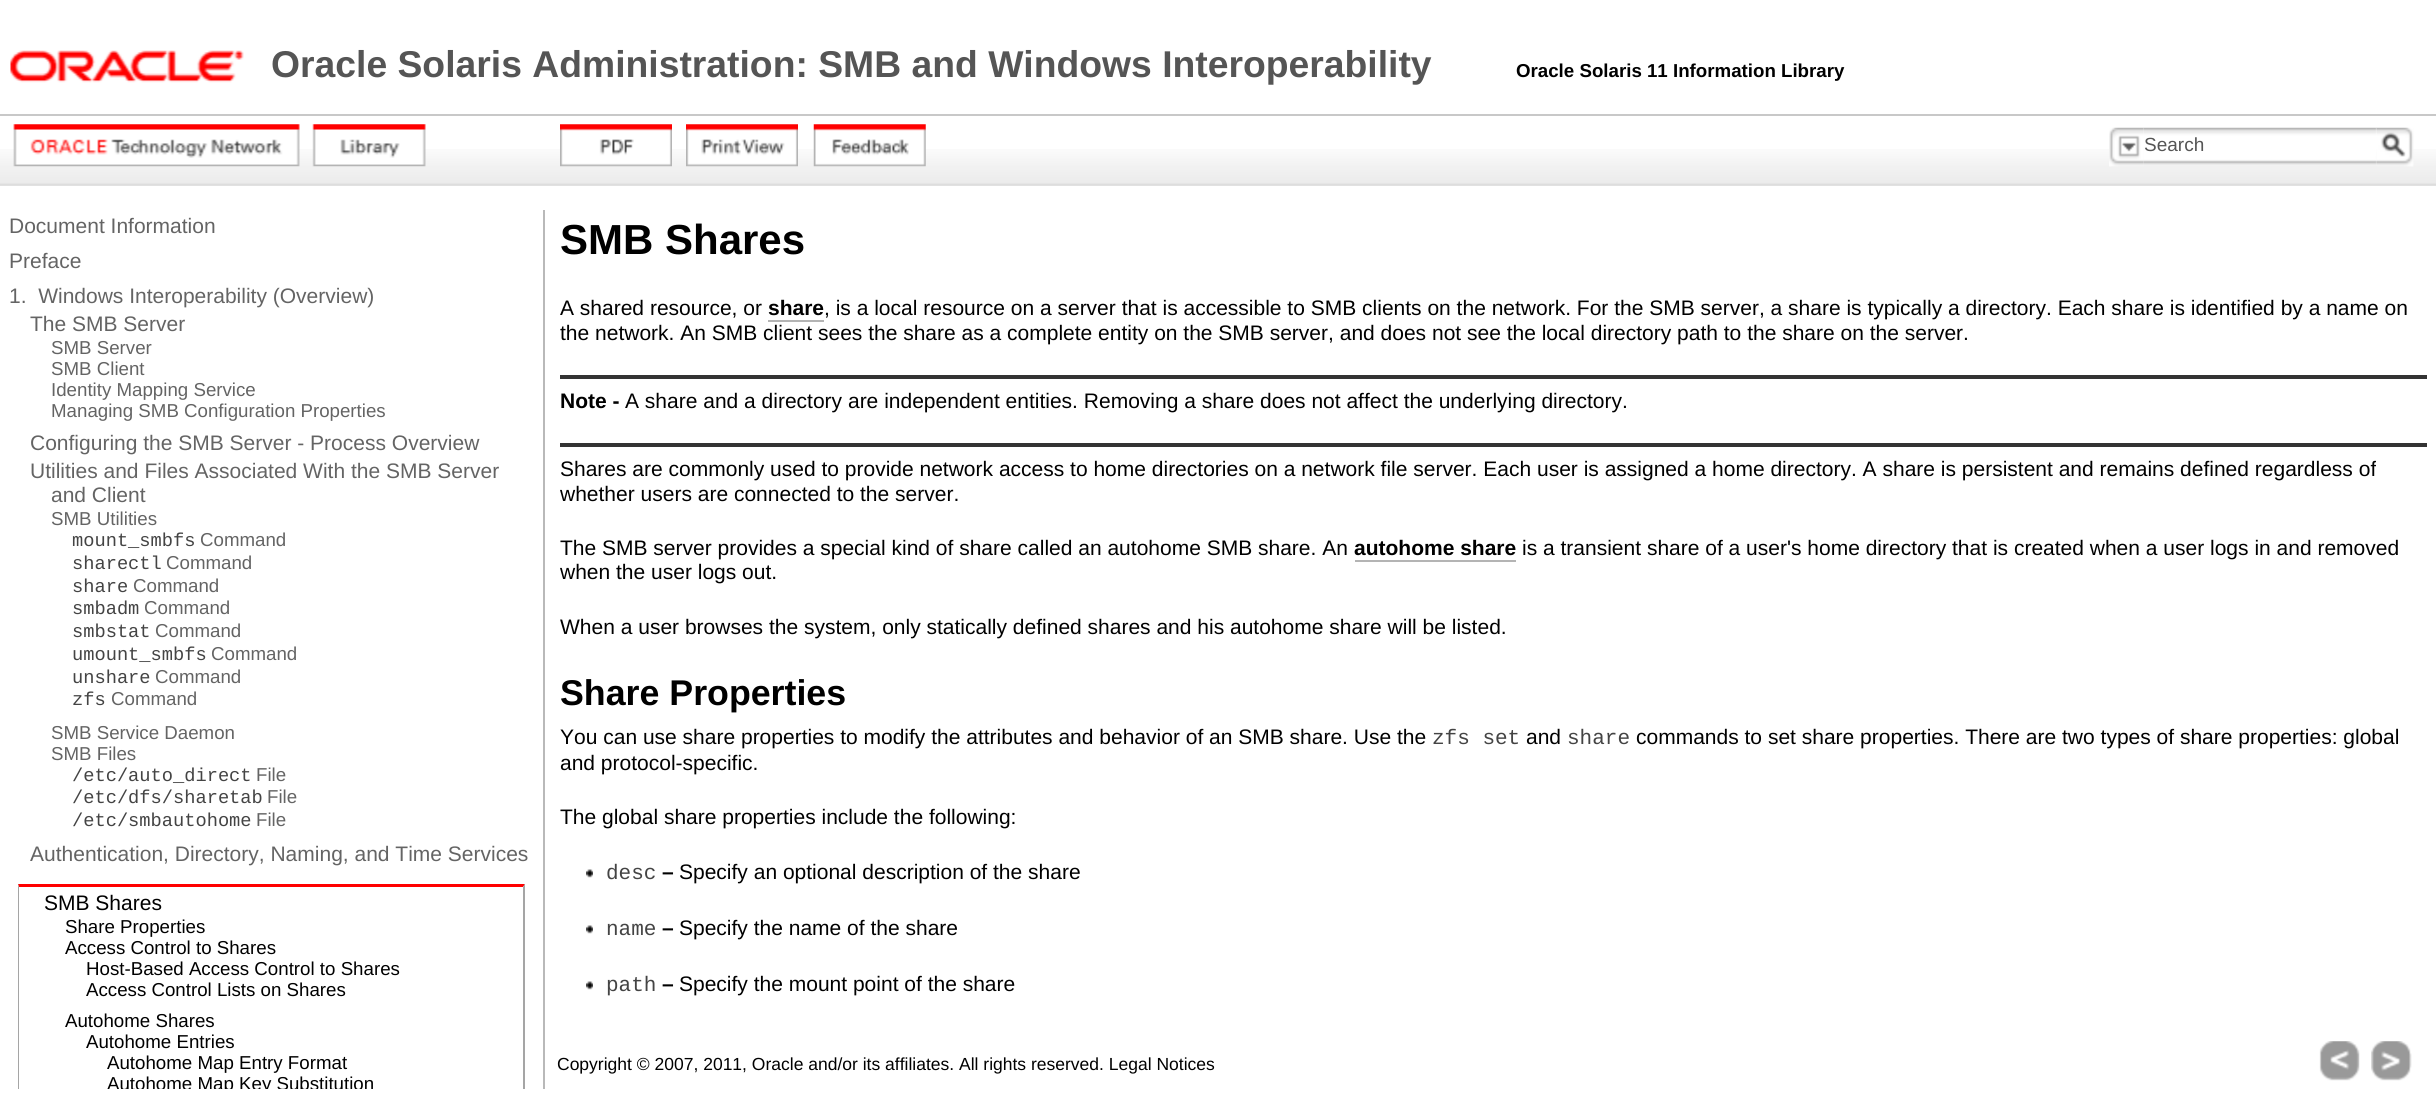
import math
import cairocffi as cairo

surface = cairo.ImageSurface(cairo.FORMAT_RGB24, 2436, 1096)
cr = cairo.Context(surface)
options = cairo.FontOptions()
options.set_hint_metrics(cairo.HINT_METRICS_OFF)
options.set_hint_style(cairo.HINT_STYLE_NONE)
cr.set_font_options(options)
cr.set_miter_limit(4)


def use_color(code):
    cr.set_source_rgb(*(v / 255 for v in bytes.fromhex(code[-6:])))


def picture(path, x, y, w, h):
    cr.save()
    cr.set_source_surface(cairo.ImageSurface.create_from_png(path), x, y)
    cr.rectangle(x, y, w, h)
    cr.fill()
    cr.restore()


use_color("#ffffff")
cr.paint()
picture("img1.png", 10, 50, 234, 33)
cr.select_font_face("Liberation Sans", cairo.FONT_SLANT_NORMAL, cairo.FONT_WEIGHT_BOLD)
cr.set_font_size(37.3)
use_color("#555555")
cr.move_to(271, 77)
cr.show_text("Oracle Solaris Administration: SMB and Windows Interoperability")
cr.set_font_size(18.7)
use_color("#000000")
cr.move_to(1516, 77)
cr.show_text("Oracle Solaris 11 Information Library")
picture("img2.png", 0, 149, 2436, 37)
use_color("#c8c8c8")
cr.rectangle(0, 114, 2436, 2)
cr.fill()
picture("img3.png", 13, 124, 287, 43)
picture("img4.png", 312, 124, 114, 43)
picture("img5.png", 560, 124, 112, 43)
picture("img6.png", 686, 124, 112, 43)
picture("img7.png", 813, 124, 113, 43)
picture("img8.png", 2109, 127, 35, 40)
picture("img9.png", 2143, 127, 234, 38)
cr.select_font_face("Liberation Sans")
cr.set_font_size(19)
use_color("#555555")
cr.move_to(2144, 151)
cr.show_text("Search")
picture("img10.png", 2376, 127, 38, 40)
use_color("#b9b9b9")
cr.rectangle(543, 210, 2, 879)
cr.fill()
cr.set_font_size(21)
use_color("#646464")
cr.move_to(9, 233)
cr.show_text("Document Information")
cr.move_to(9, 268)
cr.show_text("Preface")
cr.move_to(9, 303)
cr.show_text("1.  Windows Interoperability (Overview)")
cr.move_to(30, 331)
cr.show_text("The SMB Server")
cr.set_font_size(18.7)
cr.move_to(51, 354)
cr.show_text("SMB Server")
cr.move_to(51, 375)
cr.show_text("SMB Client")
cr.move_to(51, 396)
cr.show_text("Identity Mapping Service")
cr.move_to(51, 417)
cr.show_text("Managing SMB Configuration Properties")
cr.set_font_size(21)
cr.move_to(30, 450)
cr.show_text("Configuring the SMB Server - Process Overview")
cr.move_to(30, 478)
cr.show_text("Utilities and Files Associated With the SMB Server")
cr.move_to(51, 502)
cr.show_text("and Client")
cr.set_font_size(18.7)
cr.move_to(51, 525)
cr.show_text("SMB Utilities")
cr.select_font_face("Liberation Mono")
use_color("#444444")
cr.move_to(72, 546)
cr.show_text("mount_smbfs")
cr.select_font_face("Liberation Sans")
use_color("#646464")
cr.move_to(200, 546)
cr.show_text("Command")
cr.select_font_face("Liberation Mono")
use_color("#444444")
cr.move_to(72, 569)
cr.show_text("sharectl")
cr.select_font_face("Liberation Sans")
use_color("#646464")
cr.move_to(166, 569)
cr.show_text("Command")
cr.select_font_face("Liberation Mono")
use_color("#444444")
cr.move_to(72, 592)
cr.show_text("share")
cr.select_font_face("Liberation Sans")
use_color("#646464")
cr.move_to(133, 592)
cr.show_text("Command")
cr.select_font_face("Liberation Mono")
use_color("#444444")
cr.move_to(72, 614)
cr.show_text("smbadm")
cr.select_font_face("Liberation Sans")
use_color("#646464")
cr.move_to(144, 614)
cr.show_text("Command")
cr.select_font_face("Liberation Mono")
use_color("#444444")
cr.move_to(72, 637)
cr.show_text("smbstat")
cr.select_font_face("Liberation Sans")
use_color("#646464")
cr.move_to(155, 637)
cr.show_text("Command")
cr.select_font_face("Liberation Mono")
use_color("#444444")
cr.move_to(72, 660)
cr.show_text("umount_smbfs")
cr.select_font_face("Liberation Sans")
use_color("#646464")
cr.move_to(211, 660)
cr.show_text("Command")
cr.select_font_face("Liberation Mono")
use_color("#444444")
cr.move_to(72, 683)
cr.show_text("unshare")
cr.select_font_face("Liberation Sans")
use_color("#646464")
cr.move_to(155, 683)
cr.show_text("Command")
cr.select_font_face("Liberation Mono")
use_color("#444444")
cr.move_to(72, 705)
cr.show_text("zfs")
cr.select_font_face("Liberation Sans")
use_color("#646464")
cr.move_to(111, 705)
cr.show_text("Command")
cr.move_to(51, 739)
cr.show_text("SMB Service Daemon")
cr.move_to(51, 760)
cr.show_text("SMB Files")
cr.select_font_face("Liberation Mono")
use_color("#444444")
cr.move_to(72, 781)
cr.show_text("/etc/auto_direct")
cr.select_font_face("Liberation Sans")
use_color("#646464")
cr.move_to(256, 781)
cr.show_text("File")
cr.select_font_face("Liberation Mono")
use_color("#444444")
cr.move_to(72, 803)
cr.show_text("/etc/dfs/sharetab")
cr.select_font_face("Liberation Sans")
use_color("#646464")
cr.move_to(267, 803)
cr.show_text("File")
cr.select_font_face("Liberation Mono")
use_color("#444444")
cr.move_to(72, 826)
cr.show_text("/etc/smbautohome")
cr.select_font_face("Liberation Sans")
use_color("#646464")
cr.move_to(256, 826)
cr.show_text("File")
cr.set_font_size(21)
cr.move_to(30, 861)
cr.show_text("Authentication, Directory, Naming, and Time Services")
use_color("#ff0000")
cr.new_path()
cr.move_to(18, 884)
cr.line_to(525, 884)
cr.line_to(523, 887)
cr.line_to(19, 887)
cr.close_path()
cr.fill()
cr.save()
cr.rectangle(9, 210, 534, 879)
cr.clip()
use_color("#a5a5a5")
cr.new_path()
cr.move_to(525, 884)
cr.line_to(525, 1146)
cr.line_to(523, 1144)
cr.line_to(523, 887)
cr.close_path()
cr.fill()
cr.new_path()
cr.move_to(18, 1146)
cr.line_to(18, 884)
cr.line_to(19, 887)
cr.line_to(19, 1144)
cr.close_path()
cr.fill()
cr.restore()
use_color("#000000")
cr.move_to(44, 910)
cr.show_text("SMB Shares")
cr.set_font_size(18.7)
cr.move_to(65, 933)
cr.show_text("Share Properties")
cr.move_to(65, 954)
cr.show_text("Access Control to Shares")
cr.move_to(86, 975)
cr.show_text("Host-Based Access Control to Shares")
cr.move_to(86, 996)
cr.show_text("Access Control Lists on Shares")
cr.move_to(65, 1027)
cr.show_text("Autohome Shares")
cr.move_to(86, 1048)
cr.show_text("Autohome Entries")
cr.move_to(107, 1069)
cr.show_text("Autohome Map Entry Format")
cr.save()
cr.rectangle(9, 210, 534, 879)
cr.clip()
cr.move_to(107, 1090)
cr.show_text("Autohome Map Key Substitution")
cr.restore()
cr.select_font_face("Liberation Sans", cairo.FONT_SLANT_NORMAL, cairo.FONT_WEIGHT_BOLD)
cr.set_font_size(42)
cr.move_to(560, 254)
cr.show_text("SMB Shares")
cr.select_font_face("Liberation Sans")
cr.set_font_size(21)
cr.move_to(560, 315)
cr.show_text("A shared resource, or")
cr.select_font_face("Liberation Sans", cairo.FONT_SLANT_NORMAL, cairo.FONT_WEIGHT_BOLD)
cr.move_to(768, 315)
cr.show_text("share")
use_color("#b4b4b4")
cr.rectangle(768, 320, 56, 2)
cr.fill()
cr.select_font_face("Liberation Sans")
use_color("#000000")
cr.move_to(824, 315)
cr.show_text(", is a local resource on a server that is accessible to SMB clients on the network. For the SMB server, a share is typically a directory. Each share is identified by a name on")
cr.move_to(560, 340)
cr.show_text("the network. An SMB client sees the share as a complete entity on the SMB server, and does not see the local directory path to the share on the server.")
use_color("#333333")
cr.rectangle(560, 375, 1867, 4)
cr.fill()
cr.select_font_face("Liberation Sans", cairo.FONT_SLANT_NORMAL, cairo.FONT_WEIGHT_BOLD)
use_color("#000000")
cr.move_to(560, 408)
cr.show_text("Note -")
cr.select_font_face("Liberation Sans")
cr.move_to(625, 408)
cr.show_text("A share and a directory are independent entities. Removing a share does not affect the underlying directory.")
use_color("#333333")
cr.rectangle(560, 443, 1867, 4)
cr.fill()
use_color("#000000")
cr.move_to(560, 476)
cr.show_text("Shares are commonly used to provide network access to home directories on a network file server. Each user is assigned a home directory. A share is persistent and remains defined regardless of")
cr.move_to(560, 501)
cr.show_text("whether users are connected to the server.")
cr.move_to(560, 555)
cr.show_text("The SMB server provides a special kind of share called an autohome SMB share. An")
cr.select_font_face("Liberation Sans", cairo.FONT_SLANT_NORMAL, cairo.FONT_WEIGHT_BOLD)
cr.move_to(1354, 555)
cr.show_text("autohome share")
use_color("#b4b4b4")
cr.rectangle(1355, 560, 161, 2)
cr.fill()
cr.select_font_face("Liberation Sans")
use_color("#000000")
cr.move_to(1522, 555)
cr.show_text("is a transient share of a user's home directory that is created when a user logs in and removed")
cr.move_to(560, 579)
cr.show_text("when the user logs out.")
cr.move_to(560, 634)
cr.show_text("When a user browses the system, only statically defined shares and his autohome share will be listed.")
cr.select_font_face("Liberation Sans", cairo.FONT_SLANT_NORMAL, cairo.FONT_WEIGHT_BOLD)
cr.set_font_size(35.75)
cr.move_to(560, 705)
cr.show_text("Share Properties")
cr.select_font_face("Liberation Sans")
cr.set_font_size(21)
cr.move_to(560, 744)
cr.show_text("You can use share properties to modify the attributes and behavior of an SMB share. Use the")
cr.select_font_face("Liberation Mono")
use_color("#444444")
cr.move_to(1432, 744)
cr.show_text("zfs set")
cr.select_font_face("Liberation Sans")
use_color("#000000")
cr.move_to(1526, 744)
cr.show_text("and")
cr.select_font_face("Liberation Mono")
use_color("#444444")
cr.move_to(1567, 744)
cr.show_text("share")
cr.select_font_face("Liberation Sans")
use_color("#000000")
cr.move_to(1636, 744)
cr.show_text("commands to set share properties. There are two types of share properties: global")
cr.move_to(560, 770)
cr.show_text("and protocol-specific.")
cr.move_to(560, 824)
cr.show_text("The global share properties include the following:")
picture("img11.png", 586, 869, 7, 9)
cr.select_font_face("Liberation Mono")
use_color("#444444")
cr.move_to(606, 879)
cr.show_text("desc")
cr.select_font_face("Liberation Sans", cairo.FONT_SLANT_NORMAL, cairo.FONT_WEIGHT_BOLD)
use_color("#000000")
cr.move_to(662, 879)
cr.show_text("–")
cr.select_font_face("Liberation Sans")
cr.move_to(679, 879)
cr.show_text("Specify an optional description of the share")
picture("img12.png", 586, 925, 7, 9)
cr.select_font_face("Liberation Mono")
use_color("#444444")
cr.move_to(606, 935)
cr.show_text("name")
cr.select_font_face("Liberation Sans", cairo.FONT_SLANT_NORMAL, cairo.FONT_WEIGHT_BOLD)
use_color("#000000")
cr.move_to(662, 935)
cr.show_text("–")
cr.select_font_face("Liberation Sans")
cr.move_to(679, 935)
cr.show_text("Specify the name of the share")
picture("img12.png", 586, 981, 7, 9)
cr.select_font_face("Liberation Mono")
use_color("#444444")
cr.move_to(606, 991)
cr.show_text("path")
cr.select_font_face("Liberation Sans", cairo.FONT_SLANT_NORMAL, cairo.FONT_WEIGHT_BOLD)
use_color("#000000")
cr.move_to(662, 991)
cr.show_text("–")
cr.select_font_face("Liberation Sans")
cr.move_to(679, 991)
cr.show_text("Specify the mount point of the share")
cr.set_font_size(17.5)
cr.move_to(557, 1070)
cr.show_text("Copyright © 2007, 2011, Oracle and/or its affiliates. All rights reserved. Legal Notices")
picture("img13.png", 2319, 1041, 41, 40)
picture("img14.png", 2371, 1041, 41, 40)
surface.write_to_png("result.png")
